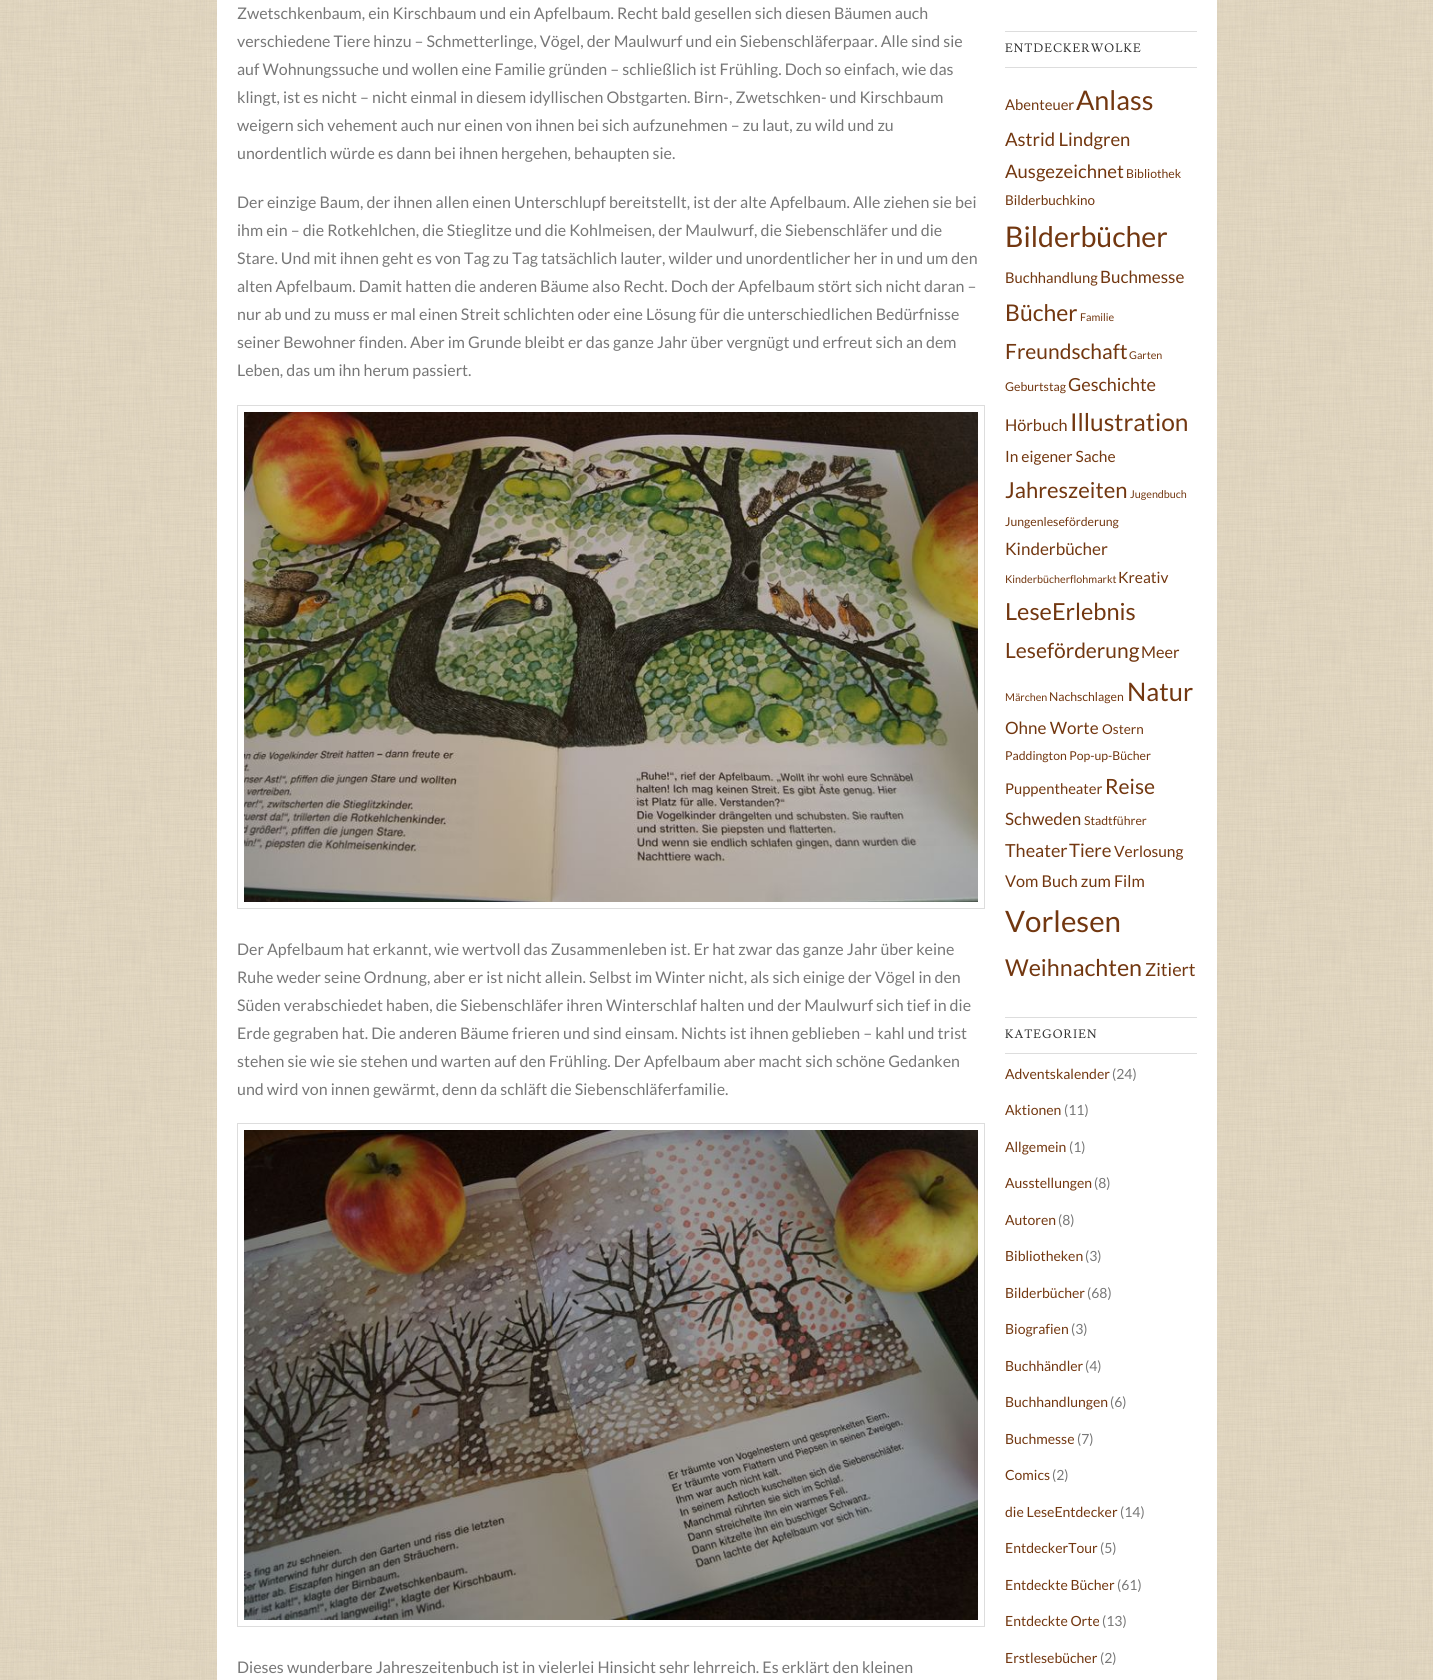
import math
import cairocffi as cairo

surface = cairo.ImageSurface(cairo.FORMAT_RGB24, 1433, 1680)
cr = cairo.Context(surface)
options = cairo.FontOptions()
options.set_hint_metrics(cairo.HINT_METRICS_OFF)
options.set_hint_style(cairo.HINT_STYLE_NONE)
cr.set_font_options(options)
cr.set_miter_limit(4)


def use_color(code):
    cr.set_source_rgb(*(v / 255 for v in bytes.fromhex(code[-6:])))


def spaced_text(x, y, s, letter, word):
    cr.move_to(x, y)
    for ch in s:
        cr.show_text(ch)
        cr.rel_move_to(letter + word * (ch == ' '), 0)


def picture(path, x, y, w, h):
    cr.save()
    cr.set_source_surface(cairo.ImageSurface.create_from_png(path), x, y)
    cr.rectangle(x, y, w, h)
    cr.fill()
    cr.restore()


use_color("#ffffff")
cr.paint()
picture("img1.png", 0, 0, 1433, 1680)
use_color("#ffffff")
cr.rectangle(217, 0, 1000, 1680)
cr.fill()
cr.select_font_face("Lato")
cr.set_font_size(16)
use_color("#777777")
cr.move_to(237, 19)
cr.show_text("Zwetschkenbaum, ein Kirschbaum und ein Apfelbaum. Recht bald gesellen sich diesen Bäumen auch")
cr.move_to(237, 47)
cr.show_text("verschiedene Tiere hinzu – Schmetterlinge, Vögel, der Maulwurf und ein Siebenschläferpaar. Alle sind sie")
cr.move_to(237, 75)
cr.show_text("auf Wohnungssuche und wollen eine Familie gründen – schließlich ist Frühling. Doch so einfach, wie das")
cr.move_to(237, 103)
cr.show_text("klingt, ist es nicht – nicht einmal in diesem idyllischen Obstgarten. Birn-, Zwetschken- und Kirschbaum")
cr.move_to(237, 131)
cr.show_text("weigern sich vehement auch nur einen von ihnen bei sich aufzunehmen – zu laut, zu wild und zu")
cr.move_to(237, 159)
cr.show_text("unordentlich würde es dann bei ihnen hergehen, behaupten sie.")
cr.move_to(237, 208)
cr.show_text("Der einzige Baum, der ihnen allen einen Unterschlupf bereitstellt, ist der alte Apfelbaum. Alle ziehen sie bei")
cr.move_to(237, 236)
cr.show_text("ihm ein – die Rotkehlchen, die Stieglitze und die Kohlmeisen, der Maulwurf, die Siebenschläfer und die")
cr.move_to(237, 264)
cr.show_text("Stare. Und mit ihnen geht es von Tag zu Tag tatsächlich lauter, wilder und unordentlicher her in und um den")
cr.move_to(237, 292)
cr.show_text("alten Apfelbaum. Damit hatten die anderen Bäume also Recht. Doch der Apfelbaum stört sich nicht daran –")
cr.move_to(237, 320)
cr.show_text("nur ab und zu muss er mal einen Streit schlichten oder eine Lösung für die unterschiedlichen Bedürfnisse")
cr.move_to(237, 348)
cr.show_text("seiner Bewohner finden. Aber im Grunde bleibt er das ganze Jahr über vergnügt und erfreut sich an dem")
cr.move_to(237, 376)
cr.show_text("Leben, das um ihn herum passiert.")
cr.rectangle(237.5, 405.5, 747, 503)
use_color("#dddddd")
cr.set_line_width(1)
cr.stroke()
picture("img2.png", 244, 412, 734, 490)
use_color("#777777")
cr.move_to(237, 955)
cr.show_text("Der Apfelbaum hat erkannt, wie wertvoll das Zusammenleben ist. Er hat zwar das ganze Jahr über keine")
cr.move_to(237, 983)
cr.show_text("Ruhe weder seine Ordnung, aber er ist nicht allein. Selbst im Winter nicht, als sich einige der Vögel in den")
cr.move_to(237, 1011)
cr.show_text("Süden verabschiedet haben, die Siebenschläfer ihren Winterschlaf halten und der Maulwurf sich tief in die")
cr.move_to(237, 1039)
cr.show_text("Erde gegraben hat. Die anderen Bäume frieren und sind einsam. Nichts ist ihnen geblieben – kahl und trist")
cr.move_to(237, 1067)
cr.show_text("stehen sie wie sie stehen und warten auf den Frühling. Der Apfelbaum aber macht sich schöne Gedanken")
cr.move_to(237, 1095)
cr.show_text("und wird von innen gewärmt, denn da schläft die Siebenschläferfamilie.")
cr.rectangle(237.5, 1123.5, 747, 503)
use_color("#dddddd")
cr.stroke()
picture("img3.png", 244, 1130, 734, 490)
use_color("#777777")
cr.move_to(237, 1673)
cr.show_text("Dieses wunderbare Jahreszeitenbuch ist in vielerlei Hinsicht sehr lehrreich. Es erklärt den kleinen")
use_color("#dddddd")
cr.rectangle(1005, 31, 192, 1)
cr.fill()
cr.rectangle(1005, 67, 192, 1)
cr.fill()
cr.select_font_face("Lusitana")
cr.set_font_size(12)
use_color("#333333")
spaced_text(1005, 52, "ENTDECKERWOLKE", 1, 0)
cr.select_font_face("Lato")
cr.set_font_size(14.75)
use_color("#723710")
cr.move_to(1005, 110)
cr.show_text("Abenteuer")
cr.set_font_size(27)
cr.move_to(1076, 110)
cr.show_text("Anlass")
cr.set_font_size(18.5)
cr.move_to(1005, 146)
cr.show_text("Astrid Lindgren")
cr.move_to(1005, 178)
cr.show_text("Ausgezeichnet")
cr.set_font_size(12.25)
cr.move_to(1126, 178)
cr.show_text("Bibliothek")
cr.set_font_size(13.5)
cr.move_to(1005, 205)
cr.show_text("Bilderbuchkino")
cr.set_font_size(28.5)
cr.move_to(1005, 247)
cr.show_text("Bilderbücher")
cr.set_font_size(14.75)
cr.move_to(1005, 283)
cr.show_text("Buchhandlung")
cr.set_font_size(17)
cr.move_to(1100, 283)
cr.show_text("Buchmesse")
cr.set_font_size(23)
cr.move_to(1005, 321)
cr.show_text("Bücher")
cr.set_font_size(10.75)
cr.move_to(1080, 321)
cr.show_text("Familie")
cr.set_font_size(21)
cr.move_to(1005, 359)
cr.show_text("Freundschaft")
cr.set_font_size(10.75)
cr.move_to(1129, 359)
cr.show_text("Garten")
cr.set_font_size(12.25)
cr.move_to(1005, 391)
cr.show_text("Geburtstag")
cr.set_font_size(18)
cr.move_to(1068, 391)
cr.show_text("Geschichte")
cr.set_font_size(16.25)
cr.move_to(1005, 431)
cr.show_text("Hörbuch")
cr.set_font_size(24.5)
cr.move_to(1070, 431)
cr.show_text("Illustration")
cr.set_font_size(15.5)
cr.move_to(1005, 462)
cr.show_text("In eigener Sache")
cr.set_font_size(22)
cr.move_to(1005, 498)
cr.show_text("Jahreszeiten")
cr.set_font_size(10.75)
cr.move_to(1130, 498)
cr.show_text("Jugendbuch")
cr.set_font_size(12.25)
cr.move_to(1005, 526)
cr.show_text("Jungenleseförderung")
cr.set_font_size(17)
cr.move_to(1005, 555)
cr.show_text("Kinderbücher")
cr.set_font_size(10.75)
cr.move_to(1005, 583)
cr.show_text("Kinderbücherflohmarkt")
cr.set_font_size(15.5)
cr.move_to(1118, 583)
cr.show_text("Kreativ")
cr.set_font_size(23.5)
cr.move_to(1005, 620)
cr.show_text("LeseErlebnis")
cr.set_font_size(21)
cr.move_to(1005, 658)
cr.show_text("Leseförderung")
cr.set_font_size(16.25)
cr.move_to(1141, 658)
cr.show_text("Meer")
cr.set_font_size(10.75)
cr.move_to(1005, 701)
cr.show_text("Märchen")
cr.set_font_size(12.25)
cr.move_to(1049, 701)
cr.show_text("Nachschlagen")
cr.set_font_size(25.5)
cr.move_to(1127, 701)
cr.show_text("Natur")
cr.set_font_size(17)
cr.move_to(1005, 734)
cr.show_text("Ohne Worte")
cr.set_font_size(13.5)
cr.move_to(1102, 734)
cr.show_text("Ostern")
cr.set_font_size(12.25)
cr.move_to(1005, 760)
cr.show_text("Paddington Pop-up-Bücher")
cr.set_font_size(14.75)
cr.move_to(1005, 794)
cr.show_text("Puppentheater")
cr.set_font_size(21)
cr.move_to(1105, 794)
cr.show_text("Reise")
cr.set_font_size(17)
cr.move_to(1005, 825)
cr.show_text("Schweden")
cr.set_font_size(12.25)
cr.move_to(1084, 825)
cr.show_text("Stadtführer")
cr.set_font_size(18)
cr.move_to(1005, 857)
cr.show_text("Theater")
cr.set_font_size(18.5)
cr.move_to(1069, 857)
cr.show_text("Tiere")
cr.set_font_size(15.5)
cr.move_to(1114, 857)
cr.show_text("Verlosung")
cr.set_font_size(16.25)
cr.move_to(1005, 887)
cr.show_text("Vom Buch zum Film")
cr.set_font_size(29.5)
cr.move_to(1005, 932)
cr.show_text("Vorlesen")
cr.set_font_size(23.25)
cr.move_to(1005, 976)
cr.show_text("Weihnachten")
cr.set_font_size(18)
cr.move_to(1145, 976)
cr.show_text("Zitiert")
use_color("#dddddd")
cr.rectangle(1005, 1017, 192, 1)
cr.fill()
cr.rectangle(1005, 1053, 192, 1)
cr.fill()
cr.select_font_face("Lusitana")
cr.set_font_size(12)
use_color("#333333")
spaced_text(1005, 1038, "KATEGORIEN", 1, 0)
cr.select_font_face("Lato")
cr.set_font_size(14)
use_color("#723710")
cr.move_to(1005, 1079)
cr.show_text("Adventskalender")
use_color("#777777")
cr.move_to(1112, 1079)
cr.show_text("(24)")
use_color("#723710")
cr.move_to(1005, 1115)
cr.show_text("Aktionen")
use_color("#777777")
cr.move_to(1064, 1115)
cr.show_text("(11)")
use_color("#723710")
cr.move_to(1005, 1152)
cr.show_text("Allgemein")
use_color("#777777")
cr.move_to(1069, 1152)
cr.show_text("(1)")
use_color("#723710")
cr.move_to(1005, 1188)
cr.show_text("Ausstellungen")
use_color("#777777")
cr.move_to(1094, 1188)
cr.show_text("(8)")
use_color("#723710")
cr.move_to(1005, 1225)
cr.show_text("Autoren")
use_color("#777777")
cr.move_to(1058, 1225)
cr.show_text("(8)")
use_color("#723710")
cr.move_to(1005, 1261)
cr.show_text("Bibliotheken")
use_color("#777777")
cr.move_to(1085, 1261)
cr.show_text("(3)")
use_color("#723710")
cr.move_to(1005, 1298)
cr.show_text("Bilderbücher")
use_color("#777777")
cr.move_to(1087, 1298)
cr.show_text("(68)")
use_color("#723710")
cr.move_to(1005, 1334)
cr.show_text("Biografien")
use_color("#777777")
cr.move_to(1071, 1334)
cr.show_text("(3)")
use_color("#723710")
cr.move_to(1005, 1371)
cr.show_text("Buchhändler")
use_color("#777777")
cr.move_to(1085, 1371)
cr.show_text("(4)")
use_color("#723710")
cr.move_to(1005, 1407)
cr.show_text("Buchhandlungen")
use_color("#777777")
cr.move_to(1110, 1407)
cr.show_text("(6)")
use_color("#723710")
cr.move_to(1005, 1444)
cr.show_text("Buchmesse")
use_color("#777777")
cr.move_to(1077, 1444)
cr.show_text("(7)")
use_color("#723710")
cr.move_to(1005, 1480)
cr.show_text("Comics")
use_color("#777777")
cr.move_to(1052, 1480)
cr.show_text("(2)")
use_color("#723710")
cr.move_to(1005, 1517)
cr.show_text("die LeseEntdecker")
use_color("#777777")
cr.move_to(1120, 1517)
cr.show_text("(14)")
use_color("#723710")
cr.move_to(1005, 1553)
cr.show_text("EntdeckerTour")
use_color("#777777")
cr.move_to(1100, 1553)
cr.show_text("(5)")
use_color("#723710")
cr.move_to(1005, 1590)
cr.show_text("Entdeckte Bücher")
use_color("#777777")
cr.move_to(1117, 1590)
cr.show_text("(61)")
use_color("#723710")
cr.move_to(1005, 1626)
cr.show_text("Entdeckte Orte")
use_color("#777777")
cr.move_to(1102, 1626)
cr.show_text("(13)")
use_color("#723710")
cr.move_to(1005, 1663)
cr.show_text("Erstlesebücher")
use_color("#777777")
cr.move_to(1100, 1663)
cr.show_text("(2)")
surface.write_to_png("result.png")
